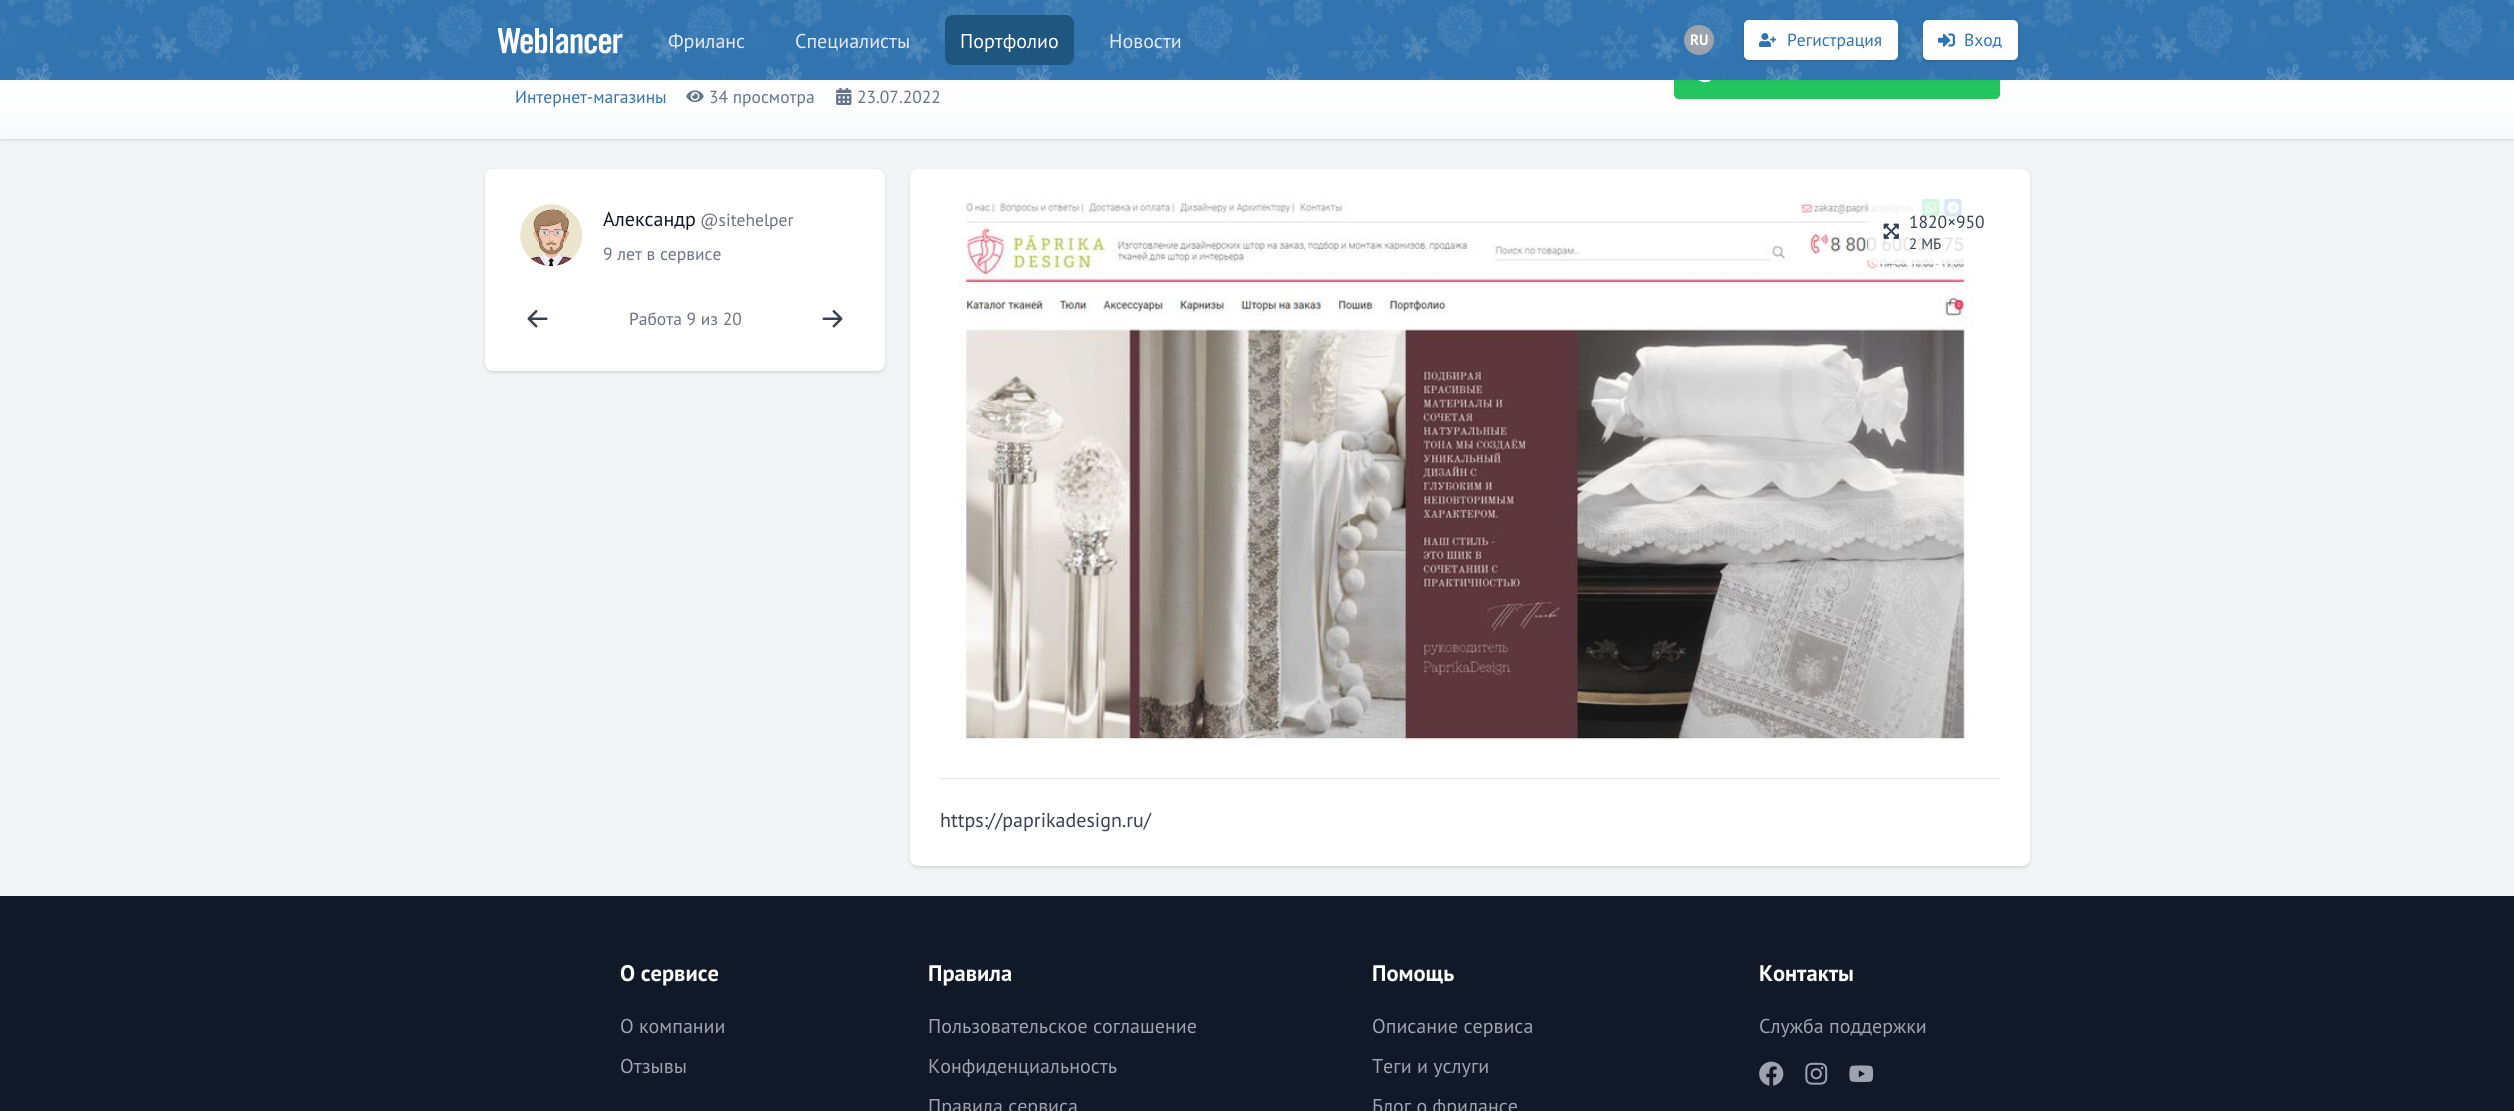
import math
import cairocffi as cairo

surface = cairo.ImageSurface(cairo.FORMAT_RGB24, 2514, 1111)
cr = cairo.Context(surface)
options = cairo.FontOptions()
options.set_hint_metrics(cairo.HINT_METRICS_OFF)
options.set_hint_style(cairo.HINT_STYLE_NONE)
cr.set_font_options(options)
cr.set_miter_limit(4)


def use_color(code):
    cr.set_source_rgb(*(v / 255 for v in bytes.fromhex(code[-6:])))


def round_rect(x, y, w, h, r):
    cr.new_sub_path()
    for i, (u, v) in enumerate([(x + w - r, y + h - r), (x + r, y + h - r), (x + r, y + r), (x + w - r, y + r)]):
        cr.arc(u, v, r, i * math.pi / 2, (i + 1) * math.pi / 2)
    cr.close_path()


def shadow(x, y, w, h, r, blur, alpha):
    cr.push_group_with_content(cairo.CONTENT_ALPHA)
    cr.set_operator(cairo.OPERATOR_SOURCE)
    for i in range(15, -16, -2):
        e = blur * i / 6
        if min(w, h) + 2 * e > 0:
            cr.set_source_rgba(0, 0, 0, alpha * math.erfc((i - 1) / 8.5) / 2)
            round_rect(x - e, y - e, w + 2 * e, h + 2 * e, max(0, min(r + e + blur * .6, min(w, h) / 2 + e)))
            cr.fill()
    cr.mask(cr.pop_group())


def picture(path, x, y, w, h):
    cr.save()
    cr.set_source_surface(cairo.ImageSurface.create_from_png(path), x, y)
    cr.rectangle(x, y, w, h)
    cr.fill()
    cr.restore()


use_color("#f3f4f6")
cr.paint()
use_color("#000000")
shadow(1, 6, 2513, 133, 0, 1, 0.1)
shadow(0, 5, 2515, 135, 0, 2, 0.1)
gradient = cairo.LinearGradient(1258, 3.7, 1258, 139)
gradient.add_color_stop_rgba(0, 0.976, 0.98, 0.984, 1)
gradient.add_color_stop_rgba(0.5, 1, 1, 1, 1)
gradient.add_color_stop_rgba(1, 0.976, 0.98, 0.984, 1)
cr.set_source(gradient)
cr.rectangle(0, 80, 2514, 59)
cr.fill()
use_color("#000000")
shadow(1675, 46, 324, 53, 4, 1, 0.1)
shadow(1674, 45, 326, 55, 5, 2, 0.1)
use_color("#22c55e")
round_rect(1674, 44, 326, 55, 5)
cr.fill()
picture("img7.png", 1698, 80, 14, 3)
use_color("#000000")
shadow(0, 1, 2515, 80, 0, 1, 0.05)
use_color("#3174af")
cr.rectangle(0, 0, 2514, 80)
cr.fill()
picture("img1.png", 0, 0, 2514, 80)
picture("img2.png", 498, 28, 125, 26)
cr.select_font_face("PT Sans")
cr.set_font_size(20)
use_color("#e5e7eb")
cr.move_to(668, 48)
cr.show_text("Фриланс")
cr.move_to(795, 48)
cr.show_text("Специалисты")
use_color("#1f5680")
round_rect(945, 15, 129, 50, 8)
cr.fill()
use_color("#ffffff")
cr.move_to(960, 48)
cr.show_text("Портфолио")
use_color("#e5e7eb")
cr.move_to(1109, 48)
cr.show_text("Новости")
use_color("#9ca3af")
cr.new_path()
cr.arc(1699, 40, 15, 0, 2 * math.pi)
cr.fill()
cr.select_font_face("PT Sans", cairo.FONT_SLANT_NORMAL, cairo.FONT_WEIGHT_BOLD)
cr.set_font_size(15)
use_color("#ffffff")
cr.move_to(1690, 45)
cr.show_text("RU")
use_color("#000000")
shadow(1745, 23, 151, 37, 4, 1, 0.1)
shadow(1744, 21, 154, 40, 5, 2, 0.1)
use_color("#ffffff")
round_rect(1744, 20, 154, 40, 5)
cr.fill()
picture("img3.png", 1759, 33, 17, 14)
cr.select_font_face("PT Sans")
cr.set_font_size(17.5)
use_color("#3174af")
cr.move_to(1787, 46)
cr.show_text("Регистрация")
use_color("#000000")
shadow(1924, 23, 92, 37, 4, 1, 0.1)
shadow(1923, 21, 95, 40, 5, 2, 0.1)
use_color("#ffffff")
round_rect(1923, 20, 95, 40, 5)
cr.fill()
picture("img4.png", 1938, 33, 17, 14)
use_color("#3174af")
cr.move_to(1964, 46)
cr.show_text("Вход")
cr.move_to(515, 103)
cr.show_text("Интернет-магазины")
picture("img5.png", 686, 90, 18, 13)
use_color("#64748b")
cr.move_to(709, 103)
cr.show_text("34 просмотра")
picture("img6.png", 836, 88, 16, 17)
cr.move_to(857, 103)
cr.show_text("23.07.2022")
use_color("#000000")
shadow(486, 171, 398, 200, 6, 1, 0.1)
shadow(485, 170, 400, 203, 8, 2, 0.1)
use_color("#ffffff")
round_rect(485, 169, 400, 202, 8)
cr.fill()
picture("img8.png", 520, 204, 63, 63)
cr.set_font_size(20)
use_color("#111827")
cr.move_to(603, 226)
cr.show_text("Александр")
cr.set_font_size(17.5)
use_color("#6b7280")
cr.move_to(700, 226)
cr.show_text("@sitehelper")
cr.move_to(603, 260)
cr.show_text("9 лет в сервисе")
picture("img9.png", 527, 310, 21, 18)
cr.move_to(629, 325)
cr.show_text("Работа 9 из 20")
picture("img10.png", 822, 310, 21, 18)
use_color("#000000")
shadow(911, 171, 1118, 695, 6, 1, 0.1)
shadow(910, 170, 1120, 698, 8, 2, 0.1)
use_color("#ffffff")
round_rect(910, 169, 1120, 697, 8)
cr.fill()
picture("img11.png", 958, 199, 1016, 545)
cr.set_source_rgba(1, 1, 1, 0.8)
cr.new_path()
cr.move_to(1868, 199)
cr.line_to(1992, 199)
cr.curve_to(1996.5, 199, 2000, 202.5, 2000, 207)
cr.line_to(2000, 264)
cr.line_to(1876, 264)
cr.curve_to(1871.5, 264, 1868, 260.5, 1868, 256)
cr.close_path()
cr.fill()
picture("img12.png", 1883, 223, 16, 16)
use_color("#374151")
cr.move_to(1909, 228)
cr.show_text("1820×950")
cr.set_font_size(15)
cr.move_to(1909, 249)
cr.show_text("2 МБ")
use_color("#e5e7eb")
cr.rectangle(940, 778, 1060, 1)
cr.fill()
cr.set_font_size(20)
use_color("#374151")
cr.move_to(940, 827)
cr.show_text("https://paprikadesign.ru/")
use_color("#111827")
cr.rectangle(0, 896, 2514, 215)
cr.fill()
cr.select_font_face("PT Sans", cairo.FONT_SLANT_NORMAL, cairo.FONT_WEIGHT_BOLD)
cr.set_font_size(22.5)
use_color("#ffffff")
cr.move_to(620, 981)
cr.show_text("О сервисе")
cr.select_font_face("PT Sans")
cr.set_font_size(20)
use_color("#9ca3af")
cr.move_to(620, 1033)
cr.show_text("О компании")
cr.move_to(620, 1073)
cr.show_text("Отзывы")
cr.select_font_face("PT Sans", cairo.FONT_SLANT_NORMAL, cairo.FONT_WEIGHT_BOLD)
cr.set_font_size(22.5)
use_color("#ffffff")
cr.move_to(928, 981)
cr.show_text("Правила")
cr.select_font_face("PT Sans")
cr.set_font_size(20)
use_color("#9ca3af")
cr.move_to(928, 1033)
cr.show_text("Пользовательское соглашение")
cr.move_to(928, 1073)
cr.show_text("Конфиденциальность")
cr.move_to(928, 1113)
cr.show_text("Правила сервиса")
cr.select_font_face("PT Sans", cairo.FONT_SLANT_NORMAL, cairo.FONT_WEIGHT_BOLD)
cr.set_font_size(22.5)
use_color("#ffffff")
cr.move_to(1372, 981)
cr.show_text("Помощь")
cr.select_font_face("PT Sans")
cr.set_font_size(20)
use_color("#9ca3af")
cr.move_to(1372, 1033)
cr.show_text("Описание сервиса")
cr.move_to(1372, 1073)
cr.show_text("Теги и услуги")
cr.move_to(1372, 1113)
cr.show_text("Блог о фрилансе")
cr.select_font_face("PT Sans", cairo.FONT_SLANT_NORMAL, cairo.FONT_WEIGHT_BOLD)
cr.set_font_size(22.5)
use_color("#ffffff")
cr.move_to(1759, 981)
cr.show_text("Контакты")
cr.select_font_face("PT Sans")
cr.set_font_size(20)
use_color("#9ca3af")
cr.move_to(1759, 1033)
cr.show_text("Служба поддержки")
picture("img13.png", 1759, 1061, 25, 25)
picture("img14.png", 1805, 1062, 23, 23)
picture("img15.png", 1849, 1065, 25, 18)
surface.write_to_png("result.png")
